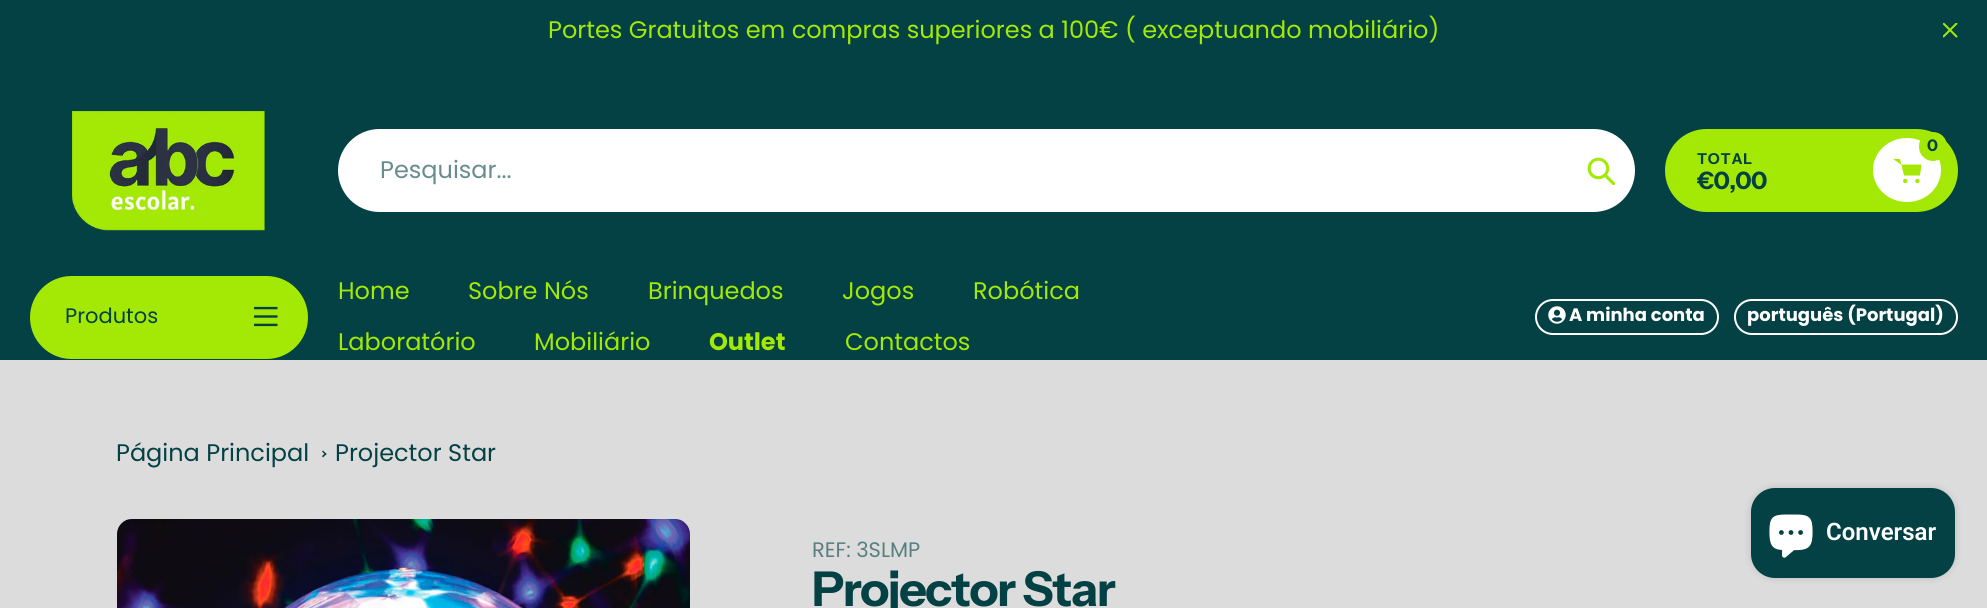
import math
import cairocffi as cairo

surface = cairo.ImageSurface(cairo.FORMAT_RGB24, 1987, 608)
cr = cairo.Context(surface)
options = cairo.FontOptions()
options.set_hint_metrics(cairo.HINT_METRICS_OFF)
options.set_hint_style(cairo.HINT_STYLE_NONE)
cr.set_font_options(options)
cr.set_miter_limit(4)


def use_color(code):
    cr.set_source_rgb(*(v / 255 for v in bytes.fromhex(code[-6:])))


def spaced_text(x, y, s, letter, word):
    cr.move_to(x, y)
    for ch in s:
        cr.show_text(ch)
        cr.rel_move_to(letter + word * (ch == ' '), 0)


def round_rect(x, y, w, h, r):
    cr.new_sub_path()
    for i, (u, v) in enumerate([(x + w - r, y + h - r), (x + r, y + h - r), (x + r, y + r), (x + w - r, y + r)]):
        cr.arc(u, v, r, i * math.pi / 2, (i + 1) * math.pi / 2)
    cr.close_path()


def shadow(x, y, w, h, r, blur, alpha):
    cr.push_group_with_content(cairo.CONTENT_ALPHA)
    cr.set_operator(cairo.OPERATOR_SOURCE)
    for i in range(15, -16, -2):
        e = blur * i / 6
        if min(w, h) + 2 * e > 0:
            cr.set_source_rgba(0, 0, 0, alpha * math.erfc((i - 1) / 8.5) / 2)
            round_rect(x - e, y - e, w + 2 * e, h + 2 * e, max(0, min(r + e + blur * .6, min(w, h) / 2 + e)))
            cr.fill()
    cr.mask(cr.pop_group())


def picture(path, x, y, w, h):
    cr.save()
    cr.set_source_surface(cairo.ImageSurface.create_from_png(path), x, y)
    cr.rectangle(x, y, w, h)
    cr.fill()
    cr.restore()


use_color("#dcdcdc")
cr.paint()
use_color("#044144")
cr.rectangle(0, 0, 1987, 360)
cr.fill()
cr.select_font_face("Poppins")
cr.set_font_size(24)
use_color("#a4e905")
cr.move_to(548, 38)
cr.show_text("Portes Gratuitos em compras superiores a 100€ ( exceptuando mobiliário)")
picture("img1.png", 1943, 23, 15, 15)
picture("img2.png", 72, 111, 193, 120)
use_color("#ffffff")
round_rect(338, 129, 1297, 83, 41.5)
cr.fill()
use_color("#688d8f")
cr.move_to(380, 178)
cr.show_text("Pesquisar...")
picture("img3.png", 1587, 157, 29, 28)
use_color("#a4e905")
round_rect(1665, 129, 293, 83, 41.5)
cr.fill()
use_color("#ffffff")
cr.new_path()
cr.move_to(1907, 138)
cr.curve_to(1926, 138, 1941, 152.5, 1941, 170)
cr.curve_to(1941, 187.5, 1926, 202, 1907, 202)
cr.curve_to(1888, 202, 1873, 187.5, 1873, 170)
cr.curve_to(1873, 152.5, 1888, 138, 1907, 138)
cr.close_path()
cr.fill()
use_color("#a4e905")
cr.set_fill_rule(cairo.FILL_RULE_EVEN_ODD)
cr.new_path()
cr.move_to(1901, 164.5)
cr.line_to(1921.5, 164.5)
cr.line_to(1920, 175.5)
cr.line_to(1904, 175.5)
cr.line_to(1900, 159)
cr.line_to(1893, 159)
cr.fill()
round_rect(1919, 132, 28, 29, 14)
cr.fill()
cr.select_font_face("Instrument Sans", cairo.FONT_SLANT_NORMAL, cairo.FONT_WEIGHT_BOLD)
cr.set_font_size(16)
use_color("#044144")
cr.move_to(1927, 151)
cr.show_text("0")
use_color("#a4e905")
cr.new_path()
cr.arc(1905.2, 181, 2.2, 0, 2 * math.pi)
cr.fill()
cr.arc(1917.4, 181, 2.2, 0, 2 * math.pi)
cr.fill()
cr.set_font_size(15)
use_color("#044144")
spaced_text(1697, 164, "TOTAL", 0.75, 0)
cr.set_font_size(24)
spaced_text(1697, 189, "€0,00", -0.75, 0)
use_color("#a4e905")
round_rect(30, 276, 278, 83, 41.5)
cr.fill()
cr.select_font_face("Poppins")
cr.set_font_size(21)
use_color("#044144")
cr.move_to(65, 323)
cr.show_text("Produtos")
picture("img4.png", 254, 306, 24, 21)
cr.set_font_size(24)
use_color("#a4e905")
cr.move_to(338, 299)
cr.show_text("Home")
cr.move_to(468, 299)
cr.show_text("Sobre Nós")
cr.move_to(648, 299)
cr.show_text("Brinquedos")
cr.move_to(842, 299)
cr.show_text("Jogos")
cr.move_to(973, 299)
cr.show_text("Robótica")
cr.move_to(338, 350)
cr.show_text("Laboratório")
cr.move_to(534, 350)
cr.show_text("Mobiliário")
cr.select_font_face("Poppins", cairo.FONT_SLANT_NORMAL, cairo.FONT_WEIGHT_BOLD)
cr.move_to(709, 350)
cr.show_text("Outlet")
cr.select_font_face("Poppins")
cr.move_to(845, 350)
cr.show_text("Contactos")
round_rect(1536, 300, 182, 34, 17)
use_color("#ffffff")
cr.stroke()
picture("img5.png", 1548, 306, 18, 18)
cr.select_font_face("Poppins", cairo.FONT_SLANT_NORMAL, cairo.FONT_WEIGHT_BOLD)
cr.set_font_size(18)
cr.move_to(1569, 321)
cr.show_text("A minha conta")
round_rect(1735, 300, 222, 34, 17)
cr.stroke()
cr.move_to(1747, 321)
cr.show_text("português (Portugal)")
cr.select_font_face("Poppins")
cr.set_font_size(24)
use_color("#044144")
cr.move_to(116, 461)
cr.show_text("Página Principal")
cr.set_fill_rule(cairo.FILL_RULE_WINDING)
cr.new_path()
cr.move_to(323, 450.5)
cr.line_to(326.5, 454)
cr.line_to(325.5, 455)
cr.line_to(322, 451.5)
cr.close_path()
cr.fill()
cr.new_path()
cr.move_to(325.5, 453)
cr.line_to(326.5, 454)
cr.line_to(323, 457.5)
cr.line_to(322, 456)
cr.close_path()
cr.fill()
cr.move_to(335, 461)
cr.show_text("Projector Star")
picture("img6.png", 117, 519, 573, 89)
cr.set_font_size(21)
use_color("#5a7f81")
cr.move_to(812, 557)
cr.show_text("REF: 3SLMP")
cr.select_font_face("Instrument Sans", cairo.FONT_SLANT_NORMAL, cairo.FONT_WEIGHT_BOLD)
cr.set_font_size(48)
use_color("#044144")
spaced_text(812, 606, "Projector Star", -1.5, 0)
use_color("#000000")
shadow(1751, 488, 204, 90, 24, 4, 0.15)
use_color("#044144")
round_rect(1751, 488, 204, 90, 24)
cr.fill()
picture("img7.png", 1769, 514, 44, 44)
cr.select_font_face("Roboto SemiBold")
cr.set_font_size(24)
use_color("#ffffff")
cr.move_to(1826, 540)
cr.show_text("Conversar")
surface.write_to_png("result.png")
